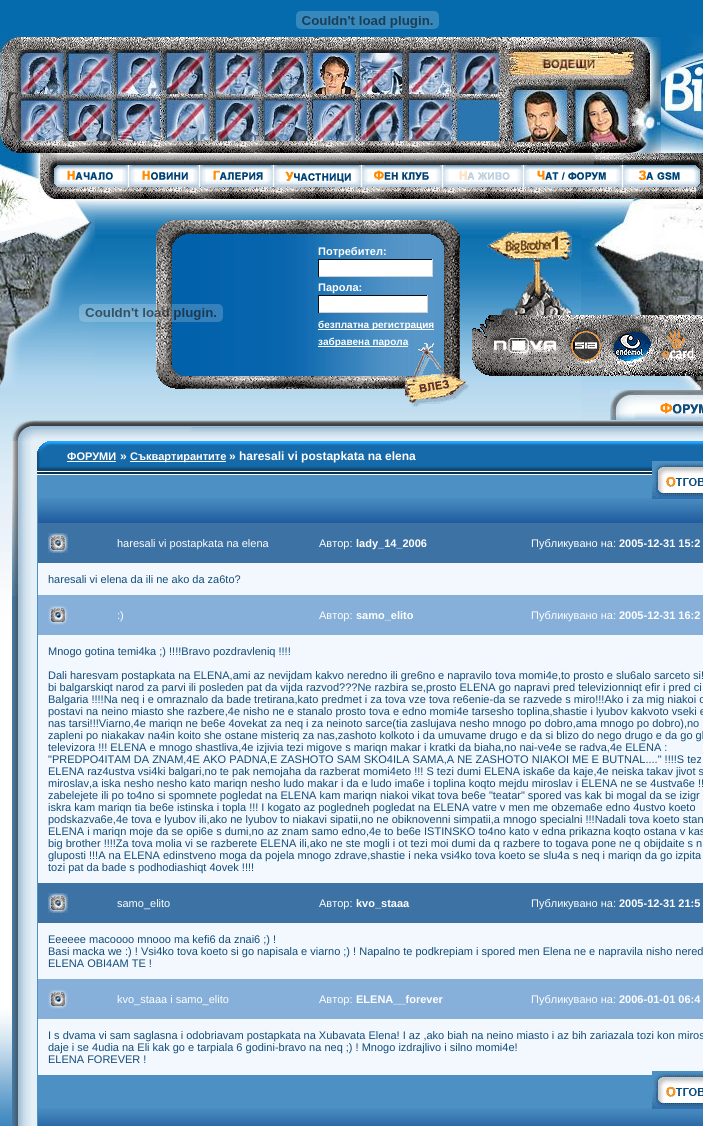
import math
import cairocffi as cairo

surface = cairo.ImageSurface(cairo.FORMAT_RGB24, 703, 1126)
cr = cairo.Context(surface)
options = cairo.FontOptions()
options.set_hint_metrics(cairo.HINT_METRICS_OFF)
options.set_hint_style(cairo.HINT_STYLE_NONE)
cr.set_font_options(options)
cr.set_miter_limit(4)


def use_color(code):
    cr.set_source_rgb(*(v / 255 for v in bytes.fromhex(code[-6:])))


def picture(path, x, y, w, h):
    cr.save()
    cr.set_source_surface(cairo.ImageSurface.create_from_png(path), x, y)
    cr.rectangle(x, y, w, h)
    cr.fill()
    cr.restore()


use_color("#ffffff")
cr.paint()
picture("img1.png", 0, 0, 703, 1126)
picture("img2.png", 296, 11, 143, 18)
picture("img3.png", 0, 164, 22, 35)
picture("img4.png", 581, 34, 122, 386)
picture("img5.png", 0, 199, 95, 189)
picture("img6.png", 95, 199, 486, 39)
picture("img7.png", 0, 37, 21, 116)
picture("img8.png", 21, 37, 478, 13)
picture("img9.png", 499, 37, 162, 116)
picture("img10.png", 21, 50, 478, 91)
picture("img11.png", 21, 141, 478, 12)
picture("img12.png", 22, 153, 35, 46)
picture("img13.png", 57, 153, 537, 12)
picture("img14.png", 594, 153, 102, 12)
picture("img15.png", 696, 153, 7, 46)
picture("img16.png", 57, 165, 639, 22)
picture("img17.png", 57, 187, 639, 12)
picture("img23.png", 172, 234, 272, 142)
cr.rectangle(170.5, 220.5, 276, 159)
use_color("#1272af")
cr.set_line_width(1)
cr.stroke()
picture("img22.png", 156, 247, 16, 118)
picture("img18.png", 79, 304, 144, 18)
picture("img19.png", 156, 220, 29, 27)
picture("img21.png", 431, 220, 29, 27)
picture("img20.png", 185, 220, 248, 14)
cr.select_font_face("Liberation Sans", cairo.FONT_SLANT_NORMAL, cairo.FONT_WEIGHT_BOLD)
cr.set_font_size(11)
use_color("#ffffff")
cr.move_to(318, 255)
cr.show_text("Потребител:")
cr.rectangle(319, 260, 113, 16)
cr.fill()
use_color("#020d1a")
cr.rectangle(318, 259, 115, 1)
cr.fill()
use_color("#ced2d7")
cr.rectangle(432, 259, 1, 18)
cr.fill()
cr.rectangle(318, 276, 115, 1)
cr.fill()
use_color("#020d1a")
cr.rectangle(318, 259, 1, 18)
cr.fill()
use_color("#ffffff")
cr.move_to(318, 291)
cr.show_text("Парола:")
cr.rectangle(319, 296, 108, 16)
cr.fill()
use_color("#020d1a")
cr.rectangle(318, 295, 110, 1)
cr.fill()
use_color("#ced2d7")
cr.rectangle(427, 295, 1, 18)
cr.fill()
cr.rectangle(318, 312, 110, 1)
cr.fill()
use_color("#020d1a")
cr.rectangle(318, 295, 1, 18)
cr.fill()
use_color("#ffffff")
cr.rectangle(318, 329, 116, 1)
cr.fill()
cr.set_font_size(10)
cr.move_to(318, 328)
cr.show_text("безплатна регистрация")
cr.rectangle(318, 346, 90, 1)
cr.fill()
cr.move_to(318, 345)
cr.show_text("забравена парола")
picture("img25.png", 444, 247, 16, 132)
picture("img27.png", 185, 376, 229, 13)
picture("img24.png", 405, 343, 64, 64)
picture("img26.png", 156, 365, 29, 24)
picture("img28.png", 487, 230, 85, 85)
picture("img29.png", 472, 315, 231, 61)
picture("img30.png", 610, 390, 93, 30)
picture("img31.png", 12, 420, 691, 21)
picture("img32.png", 12, 441, 35, 685)
picture("img33.png", 12, 441, 6, 155)
picture("img34.png", 37, 441, 666, 34)
cr.set_font_size(11)
cr.move_to(67, 460)
cr.show_text("ФОРУМИ")
cr.rectangle(67, 461, 49, 1)
cr.fill()
cr.set_font_size(12)
cr.move_to(120, 460)
cr.show_text("»")
cr.rectangle(130, 461, 96, 1)
cr.fill()
cr.set_font_size(11)
cr.move_to(130, 460)
cr.show_text("Съквартирантите")
cr.set_font_size(12)
cr.move_to(229, 460)
cr.show_text("» haresali vi postapkata na elena")
use_color("#4d91c4")
cr.rectangle(37, 475, 615, 651)
cr.fill()
picture("img35.png", 38, 498, 665, 25)
picture("img36.png", 652, 461, 51, 38)
use_color("#f2f8fd")
cr.rectangle(38, 563, 665, 512)
cr.fill()
use_color("#3d72a5")
cr.rectangle(38, 523, 665, 40)
cr.fill()
picture("img37.png", 48, 533, 20, 20)
cr.select_font_face("Liberation Sans")
cr.set_font_size(11)
use_color("#ffffff")
cr.move_to(117, 547)
cr.show_text("haresali vi postapkata na elena")
cr.move_to(319, 547)
cr.show_text("Автор:")
cr.select_font_face("Liberation Sans", cairo.FONT_SLANT_NORMAL, cairo.FONT_WEIGHT_BOLD)
cr.move_to(356, 547)
cr.show_text("lady_14_2006")
cr.select_font_face("Liberation Sans")
cr.move_to(531, 547)
cr.show_text("Публикувано на:")
cr.select_font_face("Liberation Sans", cairo.FONT_SLANT_NORMAL, cairo.FONT_WEIGHT_BOLD)
cr.move_to(619, 547)
cr.show_text("2005-12-31 15:2")
cr.select_font_face("Liberation Sans")
use_color("#104c7b")
cr.move_to(48, 583)
cr.show_text("haresali vi elena da ili ne ako da za6to?")
use_color("#86afd9")
cr.rectangle(38, 595, 665, 40)
cr.fill()
picture("img38.png", 48, 605, 20, 20)
use_color("#ffffff")
cr.move_to(117, 619)
cr.show_text(":)")
cr.move_to(319, 619)
cr.show_text("Автор:")
cr.select_font_face("Liberation Sans", cairo.FONT_SLANT_NORMAL, cairo.FONT_WEIGHT_BOLD)
cr.move_to(356, 619)
cr.show_text("samo_elito")
cr.select_font_face("Liberation Sans")
cr.move_to(531, 619)
cr.show_text("Публикувано на:")
cr.select_font_face("Liberation Sans", cairo.FONT_SLANT_NORMAL, cairo.FONT_WEIGHT_BOLD)
cr.move_to(619, 619)
cr.show_text("2005-12-31 16:2")
cr.select_font_face("Liberation Sans")
use_color("#104c7b")
cr.move_to(48, 655)
cr.show_text("Mnogo gotina temi4ka ;) !!!!Bravo pozdravleniq !!!!")
cr.move_to(48, 679)
cr.show_text("Dali haresvam postapkata na ELENA,ami az nevijdam kakvo neredno ili gre6no e napravilo tova momi4e,to prosto e slu6alo sarceto si!")
cr.move_to(48, 691)
cr.show_text("bi balgarskiqt narod za parvi ili posleden pat da vijda razvod???Ne razbira se,prosto ELENA go napravi pred televizionniqt efir i pred ci")
cr.move_to(48, 703)
cr.show_text("Balgaria !!!!Na neq i e omraznalo da bade tretirana,kato predmet i za tova vze tova re6enie-da se razvede s miro!!!Ako i za mig niakoi o")
cr.move_to(48, 715)
cr.show_text("postavi na neino miasto she razbere,4e nisho ne e stanalo prosto tova e edno momi4e tarsesho toplina,shastie i lyubov kakvoto vseki e")
cr.move_to(48, 727)
cr.show_text("nas tarsi!!!Viarno,4e mariqn ne be6e 4ovekat za neq i za neinoto sarce(tia zaslujava nesho mnogo po dobro,ama mnogo po dobro),no")
cr.move_to(48, 739)
cr.show_text("zapleni po niakakav na4in koito she ostane misteriq za nas,zashoto kolkoto i da umuvame drugo e da si blizo do nego drugo e da go gl")
cr.move_to(48, 751)
cr.show_text("televizora !!! ELENA e mnogo shastliva,4e izjivia tezi migove s mariqn makar i kratki da biaha,no nai-ve4e se radva,4e ELENA :")
cr.move_to(48, 763)
cr.show_text("\"PREDPO4ITAM DA ZNAM,4E AKO PADNA,E ZASHOTO SAM SKO4ILA SAMA,A NE ZASHOTO NIAKOI ME E BUTNAL....\" !!!!S tez")
cr.move_to(48, 775)
cr.show_text("ELENA raz4ustva vsi4ki balgari,no te pak nemojaha da razberat momi4eto !!! S tezi dumi ELENA iska6e da kaje,4e neiska takav jivot s")
cr.move_to(48, 787)
cr.show_text("miroslav,a iska nesho nesho kato mariqn nesho ludo makar i da e ludo ima6e i toplina koqto mejdu miroslav i ELENA ne se 4ustva6e !!")
cr.move_to(48, 799)
cr.show_text("zabelejete ili po to4no si spomnete pogledat na ELENA kam mariqn niakoi vikat tova be6e \"teatar\" spored vas kak bi mogal da se izigr")
cr.move_to(48, 811)
cr.show_text("iskra kam mariqn tia be6e istinska i topla !!! I kogato az pogledneh pogledat na ELENA vatre v men me obzema6e edno 4ustvo koeto")
cr.move_to(48, 823)
cr.show_text("podskazva6e,4e tova e lyubov ili,ako ne lyubov to niakavi sipatii,no ne obiknovenni simpatii,a mnogo specialni !!!Nadali tova koeto stan")
cr.move_to(48, 835)
cr.show_text("ELENA i mariqn moje da se opi6e s dumi,no az znam samo edno,4e to be6e ISTINSKO to4no kato v edna prikazna koqto ostana v kas")
cr.move_to(48, 847)
cr.show_text("big brother !!!!Za tova molia vi se razberete ELENA ili,ako ne ste mogli i ot tezi moi dumi da q razbere to togava pone ne q obijdaite s n")
cr.move_to(48, 859)
cr.show_text("gluposti !!!A na ELENA edinstveno moga da pojela mnogo zdrave,shastie i neka vsi4ko tova koeto se slu4a s neq i mariqn da go izpita")
cr.move_to(48, 871)
cr.show_text("tozi pat da bade s podhodiashiqt 4ovek !!!!")
use_color("#3d72a5")
cr.rectangle(38, 883, 665, 40)
cr.fill()
picture("img37.png", 48, 893, 20, 20)
use_color("#ffffff")
cr.move_to(117, 907)
cr.show_text("samo_elito")
cr.move_to(319, 907)
cr.show_text("Автор:")
cr.select_font_face("Liberation Sans", cairo.FONT_SLANT_NORMAL, cairo.FONT_WEIGHT_BOLD)
cr.move_to(356, 907)
cr.show_text("kvo_staaa")
cr.select_font_face("Liberation Sans")
cr.move_to(531, 907)
cr.show_text("Публикувано на:")
cr.select_font_face("Liberation Sans", cairo.FONT_SLANT_NORMAL, cairo.FONT_WEIGHT_BOLD)
cr.move_to(619, 907)
cr.show_text("2005-12-31 21:5")
cr.select_font_face("Liberation Sans")
use_color("#104c7b")
cr.move_to(48, 943)
cr.show_text("Eeeeee macoooo mnooo ma kefi6 da znai6 ;) !")
cr.move_to(48, 955)
cr.show_text("Basi macka we :) ! Vsi4ko tova koeto si go napisala e viarno ;) ! Napalno te podkrepiam i spored men Elena ne e napravila nisho nered")
cr.move_to(48, 967)
cr.show_text("ELENA OBI4AM TE !")
use_color("#86afd9")
cr.rectangle(38, 979, 665, 40)
cr.fill()
picture("img38.png", 48, 989, 20, 20)
use_color("#ffffff")
cr.move_to(117, 1003)
cr.show_text("kvo_staaa i samo_elito")
cr.move_to(319, 1003)
cr.show_text("Автор:")
cr.select_font_face("Liberation Sans", cairo.FONT_SLANT_NORMAL, cairo.FONT_WEIGHT_BOLD)
cr.move_to(356, 1003)
cr.show_text("ELENA__forever")
cr.select_font_face("Liberation Sans")
cr.move_to(531, 1003)
cr.show_text("Публикувано на:")
cr.select_font_face("Liberation Sans", cairo.FONT_SLANT_NORMAL, cairo.FONT_WEIGHT_BOLD)
cr.move_to(619, 1003)
cr.show_text("2006-01-01 06:4")
cr.select_font_face("Liberation Sans")
use_color("#104c7b")
cr.move_to(48, 1039)
cr.show_text("I s dvama vi sam saglasna i odobriavam postapkata na Xubavata Elena! I az ,ako biah na neino miasto i az bih zariazala tozi kon miros")
cr.move_to(48, 1051)
cr.show_text("daje i se 4udia na Eli kak go e tarpiala 6 godini-bravo na neq ;) ! Mnogo izdrajlivo i silno momi4e!")
cr.move_to(48, 1063)
cr.show_text("ELENA FOREVER !")
picture("img39.png", 38, 1108, 665, 18)
picture("img36.png", 652, 1071, 51, 38)
surface.write_to_png("result.png")
